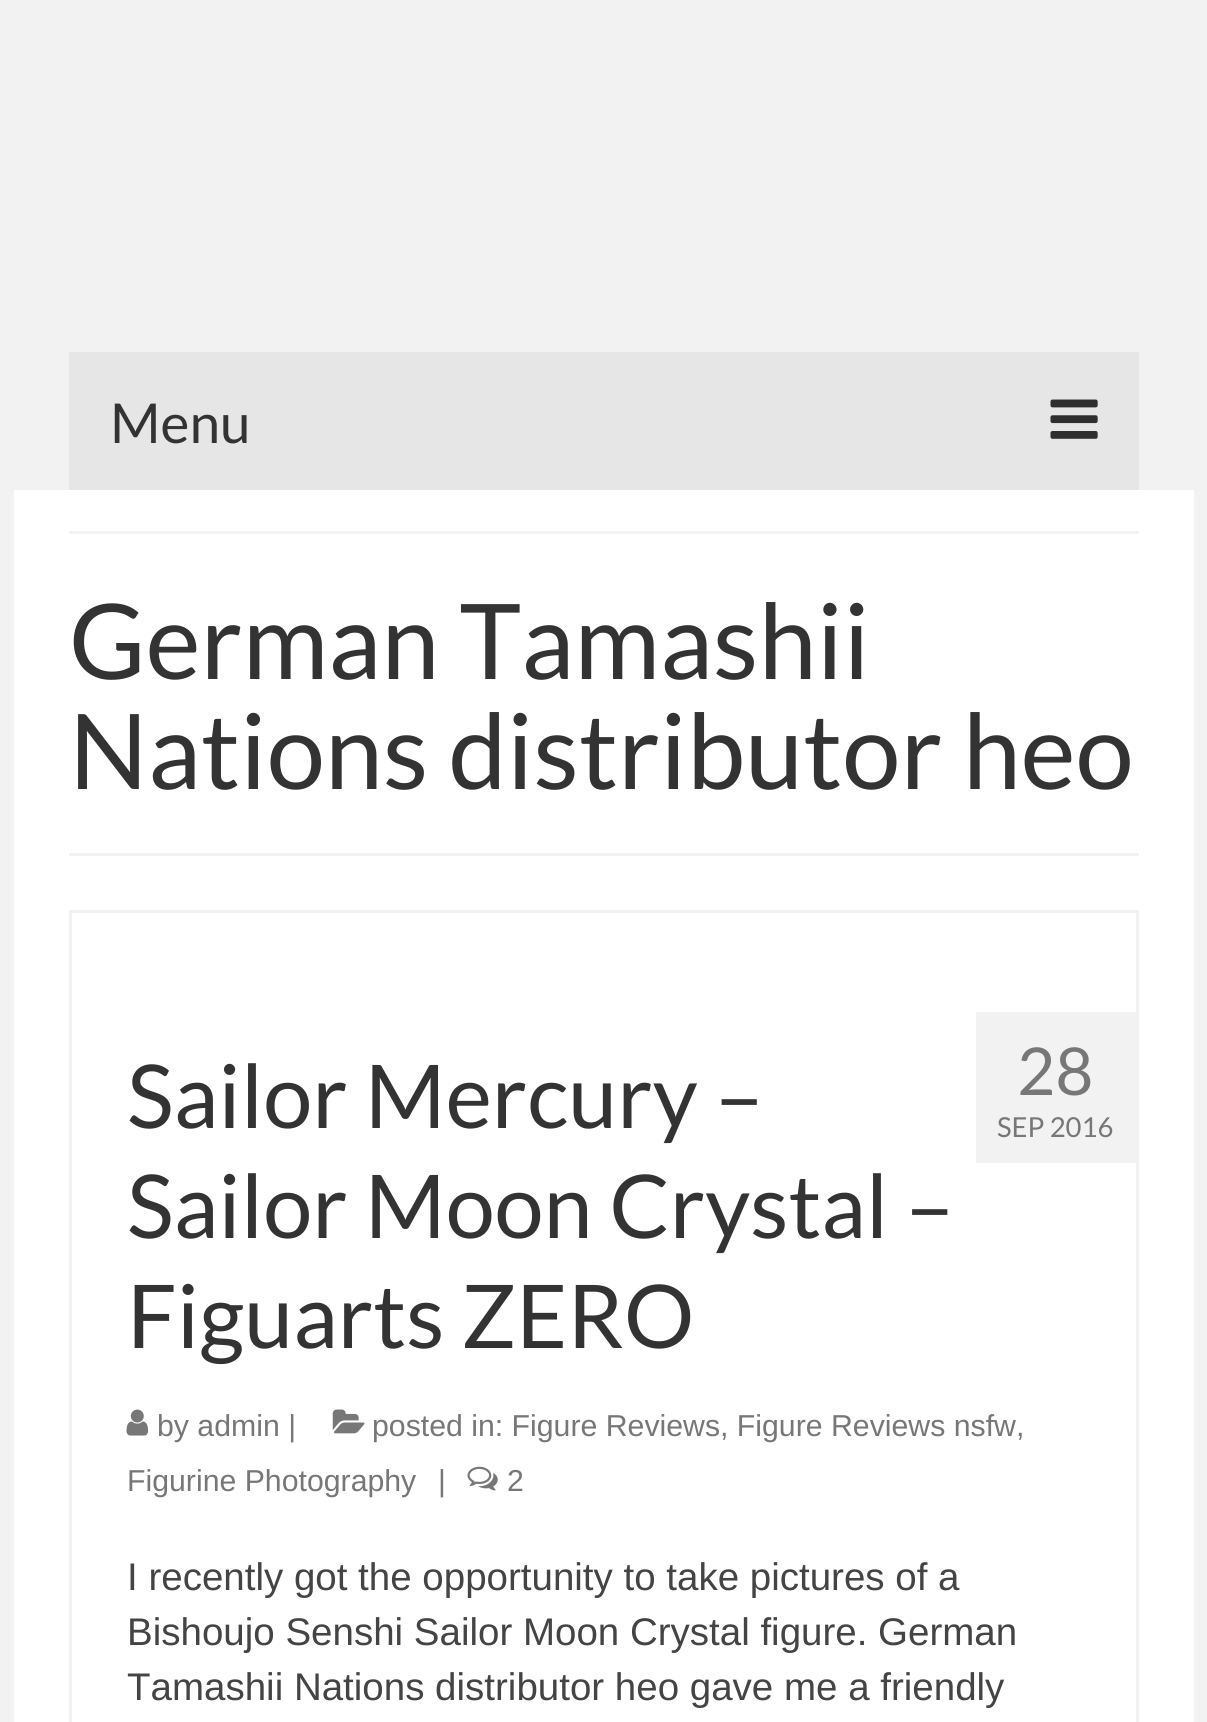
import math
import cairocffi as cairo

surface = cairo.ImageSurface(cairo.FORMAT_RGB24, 1207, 1722)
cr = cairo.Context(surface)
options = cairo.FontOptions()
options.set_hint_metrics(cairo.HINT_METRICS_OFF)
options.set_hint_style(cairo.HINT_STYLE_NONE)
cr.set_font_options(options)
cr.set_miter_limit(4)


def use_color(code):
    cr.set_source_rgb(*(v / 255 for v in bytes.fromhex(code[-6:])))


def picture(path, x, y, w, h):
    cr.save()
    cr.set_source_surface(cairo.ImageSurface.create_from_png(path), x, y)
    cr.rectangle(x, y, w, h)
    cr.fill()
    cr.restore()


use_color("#f2f2f2")
cr.paint()
use_color("#e6e6e6")
cr.rectangle(69, 352, 1070, 138)
cr.fill()
cr.select_font_face("Lato")
cr.set_font_size(55)
use_color("#333333")
cr.move_to(110, 443)
cr.show_text("Menu")
picture("img1.png", 1050, 399, 48, 40)
use_color("#ffffff")
cr.rectangle(14, 490, 1180, 1232)
cr.fill()
use_color("#f2f2f2")
cr.rectangle(69, 531, 1070, 3)
cr.fill()
cr.rectangle(69, 853, 1070, 3)
cr.fill()
cr.set_font_size(104.5)
use_color("#333333")
cr.move_to(69, 679)
cr.show_text("German Tamashii")
cr.move_to(69, 789)
cr.show_text("Nations distributor heo")
cr.rectangle(70.5, 911.5, 1067, 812)
use_color("#f2f2f2")
cr.set_line_width(3)
cr.stroke()
cr.set_font_size(88)
use_color("#333333")
cr.move_to(127, 1128)
cr.show_text("Sailor Mercury –")
cr.move_to(127, 1238)
cr.show_text("Sailor Moon Crystal –")
cr.move_to(127, 1348)
cr.show_text("Figuarts ZERO")
picture("img2.png", 332, 1409, 33, 25)
cr.select_font_face("Liberation Sans")
cr.set_font_size(30.25)
use_color("#777777")
cr.move_to(372, 1436)
cr.show_text("posted in: Figure Reviews, Figure Reviews nsfw,")
cr.move_to(127, 1491)
cr.show_text("Figurine Photography")
picture("img3.png", 126, 1409, 23, 27)
cr.move_to(157, 1436)
cr.show_text("by admin |")
cr.move_to(438, 1491)
cr.show_text("|")
picture("img4.png", 467, 1466, 31, 25)
cr.move_to(507, 1491)
cr.show_text("2")
use_color("#f2f2f2")
cr.rectangle(976, 1012, 160, 151)
cr.fill()
cr.select_font_face("Lato")
cr.set_font_size(66)
use_color("#777777")
cr.move_to(1017, 1095)
cr.show_text("28")
cr.set_font_size(27.5)
cr.move_to(997, 1137)
cr.show_text("SEP 2016")
cr.select_font_face("Liberation Sans")
cr.set_font_size(38.5)
use_color("#444444")
cr.move_to(127, 1590)
cr.show_text("I recently got the opportunity to take pictures of a")
cr.move_to(127, 1645)
cr.show_text("Bishoujo Senshi Sailor Moon Crystal figure. German")
cr.move_to(127, 1700)
cr.show_text("Tamashii Nations distributor heo gave me a friendly")
surface.write_to_png("result.png")
